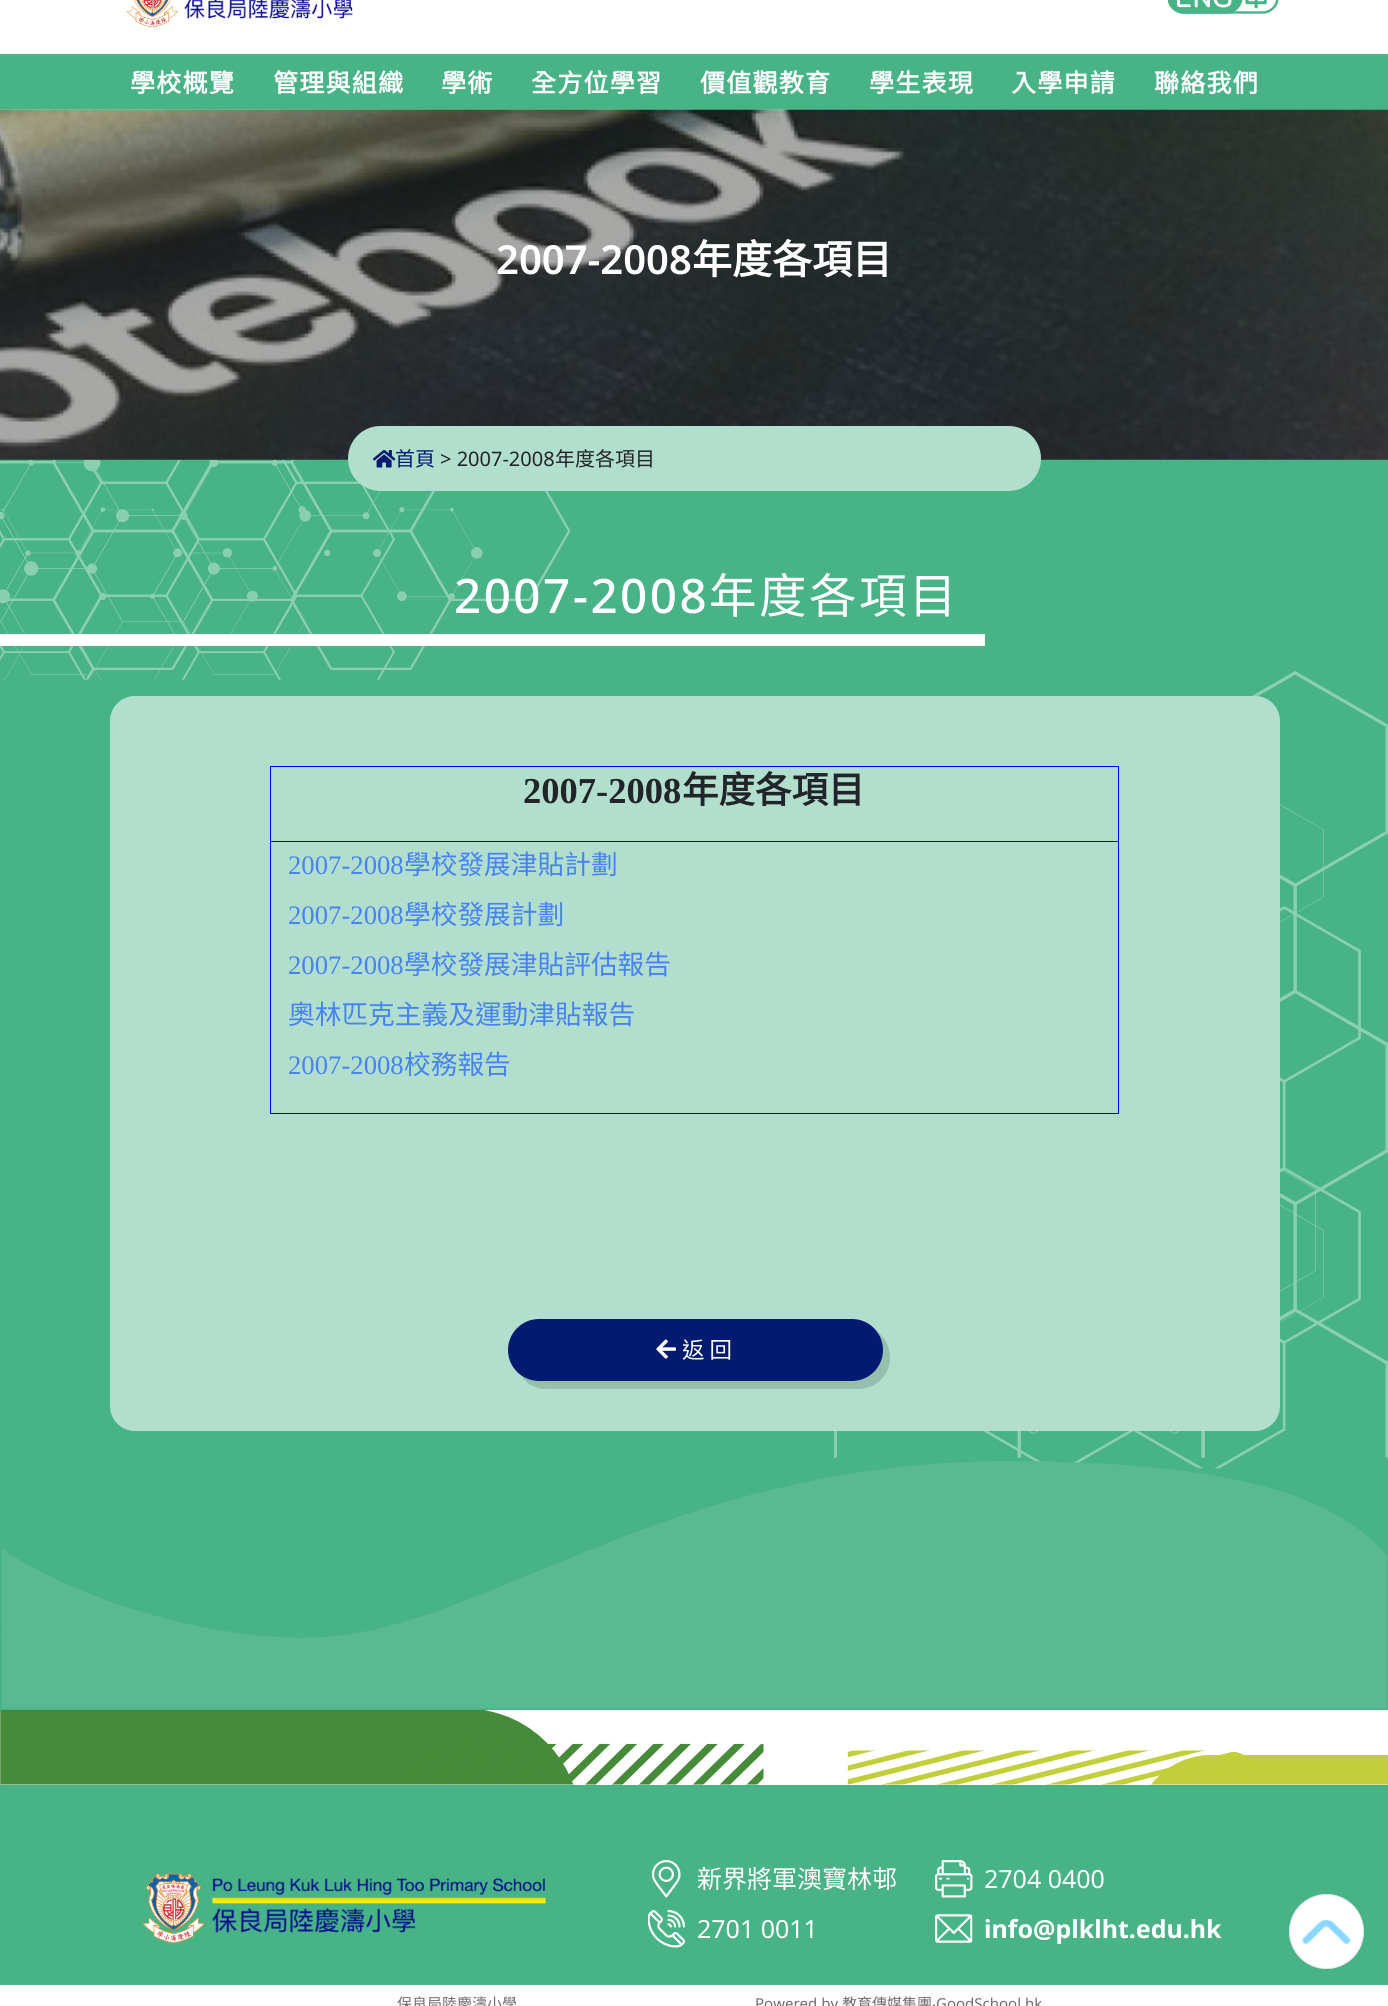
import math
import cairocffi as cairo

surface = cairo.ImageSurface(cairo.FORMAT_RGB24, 1388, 2006)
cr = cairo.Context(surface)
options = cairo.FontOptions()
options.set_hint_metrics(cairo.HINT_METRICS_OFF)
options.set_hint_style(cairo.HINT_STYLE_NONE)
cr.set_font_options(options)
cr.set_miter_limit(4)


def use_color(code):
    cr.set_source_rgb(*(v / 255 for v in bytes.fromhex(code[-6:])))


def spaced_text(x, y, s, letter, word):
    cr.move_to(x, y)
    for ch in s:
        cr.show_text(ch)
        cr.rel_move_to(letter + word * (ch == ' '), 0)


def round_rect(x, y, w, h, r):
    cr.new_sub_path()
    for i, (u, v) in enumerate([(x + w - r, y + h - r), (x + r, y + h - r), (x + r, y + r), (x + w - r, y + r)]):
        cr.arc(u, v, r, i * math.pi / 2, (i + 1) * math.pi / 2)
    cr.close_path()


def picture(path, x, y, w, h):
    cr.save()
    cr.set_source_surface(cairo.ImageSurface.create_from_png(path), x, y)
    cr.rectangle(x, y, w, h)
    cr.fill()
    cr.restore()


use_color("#ffffff")
cr.paint()
picture("img1.png", 126, 0, 227, 28)
picture("img2.png", 1168, 0, 111, 14)
use_color("#47b387")
cr.rectangle(0, 54, 1388, 56)
cr.fill()
cr.select_font_face("Noto Sans CJK HK", cairo.FONT_SLANT_NORMAL, cairo.FONT_WEIGHT_BOLD)
cr.set_font_size(25)
use_color("#ffffff")
spaced_text(130, 92, "學校概覽", 1.25, 0)
spaced_text(273, 92, "管理與組織", 1.25, 0)
spaced_text(441, 92, "學術", 1.25, 0)
spaced_text(531, 92, "全方位學習", 1.25, 0)
spaced_text(700, 92, "價值觀教育", 1.25, 0)
spaced_text(869, 92, "學生表現", 1.25, 0)
spaced_text(1011, 92, "入學申請", 1.25, 0)
spaced_text(1154, 92, "聯絡我們", 1.25, 0)
use_color("#47b387")
cr.rectangle(0, 459, 1388, 1251)
cr.fill()
picture("img3.png", 0, 460, 1388, 1249)
picture("img4.png", 0, 109, 1388, 351)
cr.select_font_face("Noto Sans SemiBold")
cr.set_font_size(40)
use_color("#ffffff")
cr.move_to(496, 274)
cr.show_text("2007-2008")
cr.select_font_face("Noto Sans CJK HK", cairo.FONT_SLANT_NORMAL, cairo.FONT_WEIGHT_BOLD)
cr.move_to(692, 274)
cr.show_text("年度各項目")
use_color("#b2dfcd")
round_rect(348, 426, 693, 65, 32.5)
cr.fill()
picture("img5.png", 372, 450, 24, 18)
cr.select_font_face("Noto Sans CJK HK")
cr.set_font_size(20)
use_color("#031a71")
cr.move_to(395, 466)
cr.show_text("首頁")
cr.select_font_face("Noto Sans")
use_color("#212529")
cr.move_to(440, 466)
cr.show_text("> 2007-2008")
cr.select_font_face("Noto Sans CJK HK")
cr.move_to(555, 466)
cr.show_text("年度各項目")
use_color("#ffffff")
cr.rectangle(0, 634, 985, 12)
cr.fill()
cr.select_font_face("Noto Sans Medium")
cr.set_font_size(47.5)
spaced_text(454, 613, "2007-2008", 2.5, 0)
cr.select_font_face("Noto Sans CJK HK")
spaced_text(709, 613, "年度各項目", 2.5, 0)
use_color("#b2dfcd")
round_rect(110, 696, 1170, 735, 25)
cr.fill()
use_color("#0000ff")
cr.rectangle(270, 766, 849, 1)
cr.fill()
cr.rectangle(1118, 766, 1, 348)
cr.fill()
cr.rectangle(270, 1113, 849, 1)
cr.fill()
cr.rectangle(270, 766, 1, 348)
cr.fill()
cr.select_font_face("Liberation Serif", cairo.FONT_SLANT_NORMAL, cairo.FONT_WEIGHT_BOLD)
cr.set_font_size(36.5)
use_color("#212529")
cr.move_to(523, 803)
cr.show_text("2007-2008")
cr.select_font_face("Noto Sans CJK HK", cairo.FONT_SLANT_NORMAL, cairo.FONT_WEIGHT_BOLD)
cr.move_to(682, 803)
cr.show_text("年度各項目")
use_color("#0000ff")
cr.rectangle(271, 841, 847, 1)
cr.fill()
cr.select_font_face("Liberation Serif")
cr.set_font_size(26.7)
use_color("#4783f3")
cr.move_to(288, 874)
cr.show_text("2007-2008")
cr.select_font_face("Noto Sans CJK HK")
cr.move_to(404, 874)
cr.show_text("學校發展津貼計劃")
cr.select_font_face("Liberation Serif")
cr.move_to(288, 924)
cr.show_text("2007-2008")
cr.select_font_face("Noto Sans CJK HK")
cr.move_to(404, 924)
cr.show_text("學校發展計劃")
cr.select_font_face("Liberation Serif")
cr.move_to(288, 974)
cr.show_text("2007-2008")
cr.select_font_face("Noto Sans CJK HK")
cr.move_to(404, 974)
cr.show_text("學校發展津貼評估報告")
cr.move_to(288, 1024)
cr.show_text("奧林匹克主義及運動津貼報告")
cr.select_font_face("Liberation Serif")
cr.move_to(288, 1074)
cr.show_text("2007-2008")
cr.select_font_face("Noto Sans CJK HK")
cr.move_to(404, 1074)
cr.show_text("校務報告")
use_color("#97beae")
cr.new_path()
cr.move_to(521, 1375)
cr.curve_to(526, 1384, 536, 1389, 546, 1389)
cr.line_to(858, 1389)
cr.curve_to(876, 1389, 890, 1375, 890, 1358)
cr.curve_to(890, 1347, 885, 1337, 877, 1332)
cr.curve_to(880, 1337, 882, 1343, 882, 1350)
cr.curve_to(882, 1367, 869, 1381, 851, 1381)
cr.line_to(539, 1381)
cr.curve_to(532, 1381, 526, 1379, 521, 1375)
cr.close_path()
cr.fill()
use_color("#031a71")
round_rect(508, 1319, 375, 62, 31)
cr.fill()
picture("img6.png", 656, 1339, 20, 20)
cr.set_font_size(22.5)
use_color("#ffffff")
cr.move_to(682, 1358)
cr.show_text("返 回")
picture("img7.png", 0, 1710, 1388, 75)
use_color("#47b387")
cr.rectangle(0, 1785, 1388, 200)
cr.fill()
picture("img8.png", 142, 1873, 404, 70)
picture("img9.png", 652, 1860, 29, 38)
cr.set_font_size(25)
use_color("#ffffff")
cr.move_to(697, 1888)
cr.show_text("新界將軍澳寶林邨")
picture("img10.png", 648, 1910, 37, 38)
cr.select_font_face("Noto Sans")
cr.move_to(697, 1938)
cr.show_text("2701 0011")
picture("img11.png", 935, 1860, 38, 38)
cr.move_to(984, 1888)
cr.show_text("2704 0400")
picture("img12.png", 935, 1914, 38, 29)
cr.select_font_face("Noto Sans", cairo.FONT_SLANT_NORMAL, cairo.FONT_WEIGHT_BOLD)
cr.move_to(984, 1938)
cr.show_text("info@plklht.edu.hk")
cr.select_font_face("Noto Sans CJK HK")
cr.set_font_size(15)
use_color("#736c6c")
cr.move_to(397, 2009)
cr.show_text("保良局陸慶濤小學")
cr.select_font_face("Noto Sans")
cr.move_to(755, 2009)
cr.show_text("Powered by")
cr.select_font_face("Noto Sans CJK HK")
cr.move_to(842, 2009)
cr.show_text("教育傳媒集團")
cr.select_font_face("Noto Sans")
cr.move_to(932, 2009)
cr.show_text("‧GoodSchool.hk")
use_color("#ffffff")
cr.new_path()
cr.arc(1326.5, 1931.5, 37.5, 0, 2 * math.pi)
cr.fill()
cr.arc(1326.5, 1931.5, 37, 0, 2 * math.pi)
cr.set_source_rgba(0.69, 0.69, 0.69, 0.3)
cr.set_line_width(1)
cr.stroke()
picture("img13.png", 1302, 1919, 48, 25)
surface.write_to_png("result.png")
